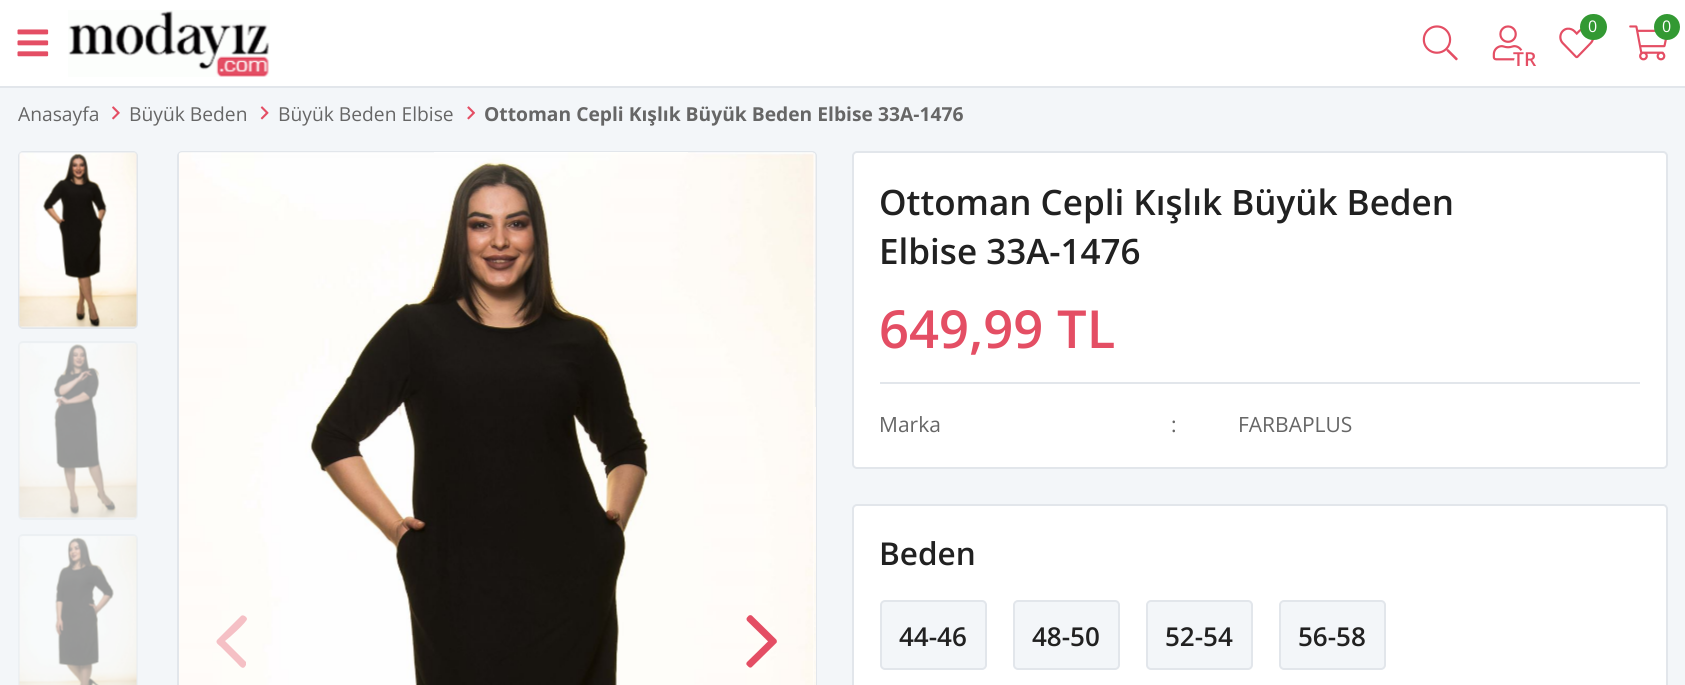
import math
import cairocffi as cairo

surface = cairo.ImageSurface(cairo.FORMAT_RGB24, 1685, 685)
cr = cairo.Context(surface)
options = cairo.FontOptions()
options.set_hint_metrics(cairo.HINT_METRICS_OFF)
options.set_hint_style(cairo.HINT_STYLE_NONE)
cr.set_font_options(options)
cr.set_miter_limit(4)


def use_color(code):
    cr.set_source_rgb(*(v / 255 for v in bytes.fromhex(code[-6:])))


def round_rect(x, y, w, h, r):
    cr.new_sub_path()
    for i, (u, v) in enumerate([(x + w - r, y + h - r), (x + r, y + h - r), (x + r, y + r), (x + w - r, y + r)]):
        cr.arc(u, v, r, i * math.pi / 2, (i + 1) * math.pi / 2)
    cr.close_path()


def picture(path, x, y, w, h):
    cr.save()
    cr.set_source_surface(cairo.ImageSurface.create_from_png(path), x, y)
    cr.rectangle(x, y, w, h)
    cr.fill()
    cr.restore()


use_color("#f3f6f9")
cr.paint()
use_color("#ffffff")
cr.rectangle(0, 0, 1685, 86)
cr.fill()
use_color("#e2e6eb")
cr.rectangle(0, 86, 1685, 2)
cr.fill()
picture("img1.png", 17, 29, 32, 28)
picture("img2.png", 68, 10, 202, 67)
picture("img3.png", 1422, 25, 36, 36)
picture("img4.png", 1492, 25, 31, 36)
use_color("#ffffff")
cr.arc(1527, 62, 13, 0, 2 * math.pi)
cr.fill()
cr.select_font_face("Open Sans SemiBold")
cr.set_font_size(19.25)
use_color("#e44e64")
cr.move_to(1513, 66)
cr.show_text("TR")
picture("img5.png", 1559, 27, 35, 32)
use_color("#339933")
round_rect(1580, 14, 27, 26, 13)
cr.fill()
cr.select_font_face("Open Sans")
cr.set_font_size(16)
use_color("#ffffff")
cr.move_to(1588, 32)
cr.show_text("0")
picture("img6.png", 1629, 25, 38, 36)
use_color("#339933")
cr.arc(1667, 27, 13, 0, 2 * math.pi)
cr.fill()
use_color("#ffffff")
cr.move_to(1662, 32)
cr.show_text("0")
cr.set_font_size(19.25)
use_color("#666666")
cr.move_to(18, 121)
cr.show_text("Anasayfa")
picture("img7.png", 112, 106, 8, 14)
cr.move_to(129, 121)
cr.show_text("Büyük Beden")
picture("img8.png", 260, 106, 9, 14)
cr.move_to(278, 121)
cr.show_text("Büyük Beden Elbise")
picture("img9.png", 467, 106, 8, 14)
cr.select_font_face("Open Sans", cairo.FONT_SLANT_NORMAL, cairo.FONT_WEIGHT_BOLD)
cr.move_to(484, 121)
cr.show_text("Ottoman Cepli Kışlık Büyük Beden Elbise 33A-1476")
round_rect(19, 152, 118, 176, 4)
use_color("#e2e6eb")
cr.stroke()
picture("img10.png", 19, 152, 118, 176)
round_rect(19, 342, 118, 177, 4)
use_color("#ecf0f3")
cr.stroke()
picture("img11.png", 19, 343, 118, 175)
round_rect(19, 535, 118, 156, 4)
cr.stroke()
picture("img12.png", 19, 536, 118, 149)
use_color("#ffffff")
round_rect(178, 152, 638, 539, 4)
cr.fill_preserve()
use_color("#e2e6eb")
cr.stroke()
picture("img13.png", 179, 152, 635, 533)
picture("img14.png", 814, 153, 2, 532)
use_color("#f5c0c5")
cr.new_path()
cr.move_to(217, 640)
cr.line_to(241, 616)
cr.curve_to(243, 614, 247, 617, 247, 619)
cr.curve_to(247, 622, 228, 639, 225, 641)
cr.line_to(246, 662)
cr.line_to(246, 665)
cr.curve_to(243, 671, 240, 666, 237, 663)
cr.line_to(221, 647)
cr.curve_to(219, 645, 215, 643, 217, 640)
cr.close_path()
cr.fill()
picture("img15.png", 746, 615, 31, 53)
use_color("#ffffff")
round_rect(853, 152, 814, 316, 4)
cr.fill_preserve()
use_color("#e2e6eb")
cr.stroke()
cr.select_font_face("Open Sans SemiBold")
cr.set_font_size(35)
use_color("#212121")
cr.move_to(879, 215)
cr.show_text("Ottoman Cepli Kışlık Büyük Beden")
cr.move_to(879, 264)
cr.show_text("Elbise 33A-1476")
use_color("#e2e6eb")
cr.rectangle(880, 382, 760, 2)
cr.fill()
cr.set_font_size(52.5)
use_color("#e44e64")
cr.move_to(879, 348)
cr.show_text("649,99 TL")
cr.select_font_face("Open Sans")
cr.set_font_size(21)
use_color("#666666")
cr.move_to(879, 432)
cr.show_text("Marka")
cr.move_to(1171, 432)
cr.show_text(":")
cr.move_to(1238, 432)
cr.show_text("FARBAPLUS")
use_color("#ffffff")
round_rect(853, 505, 814, 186, 4)
cr.fill_preserve()
use_color("#e2e6eb")
cr.stroke()
cr.select_font_face("Open Sans SemiBold")
cr.set_font_size(31.5)
use_color("#212121")
cr.move_to(879, 565)
cr.show_text("Beden")
use_color("#f3f6f9")
round_rect(881, 601, 105, 68, 4)
cr.fill_preserve()
use_color("#e2e6eb")
cr.stroke()
cr.set_font_size(26)
use_color("#212121")
cr.move_to(899, 646)
cr.show_text("44-46")
use_color("#f3f6f9")
round_rect(1014, 601, 105, 68, 4)
cr.fill_preserve()
use_color("#e2e6eb")
cr.stroke()
use_color("#212121")
cr.move_to(1032, 646)
cr.show_text("48-50")
use_color("#f3f6f9")
round_rect(1147, 601, 105, 68, 4)
cr.fill_preserve()
use_color("#e2e6eb")
cr.stroke()
use_color("#212121")
cr.move_to(1165, 646)
cr.show_text("52-54")
use_color("#f3f6f9")
round_rect(1280, 601, 105, 68, 4)
cr.fill_preserve()
use_color("#e2e6eb")
cr.stroke()
use_color("#212121")
cr.move_to(1298, 646)
cr.show_text("56-58")
surface.write_to_png("result.png")
